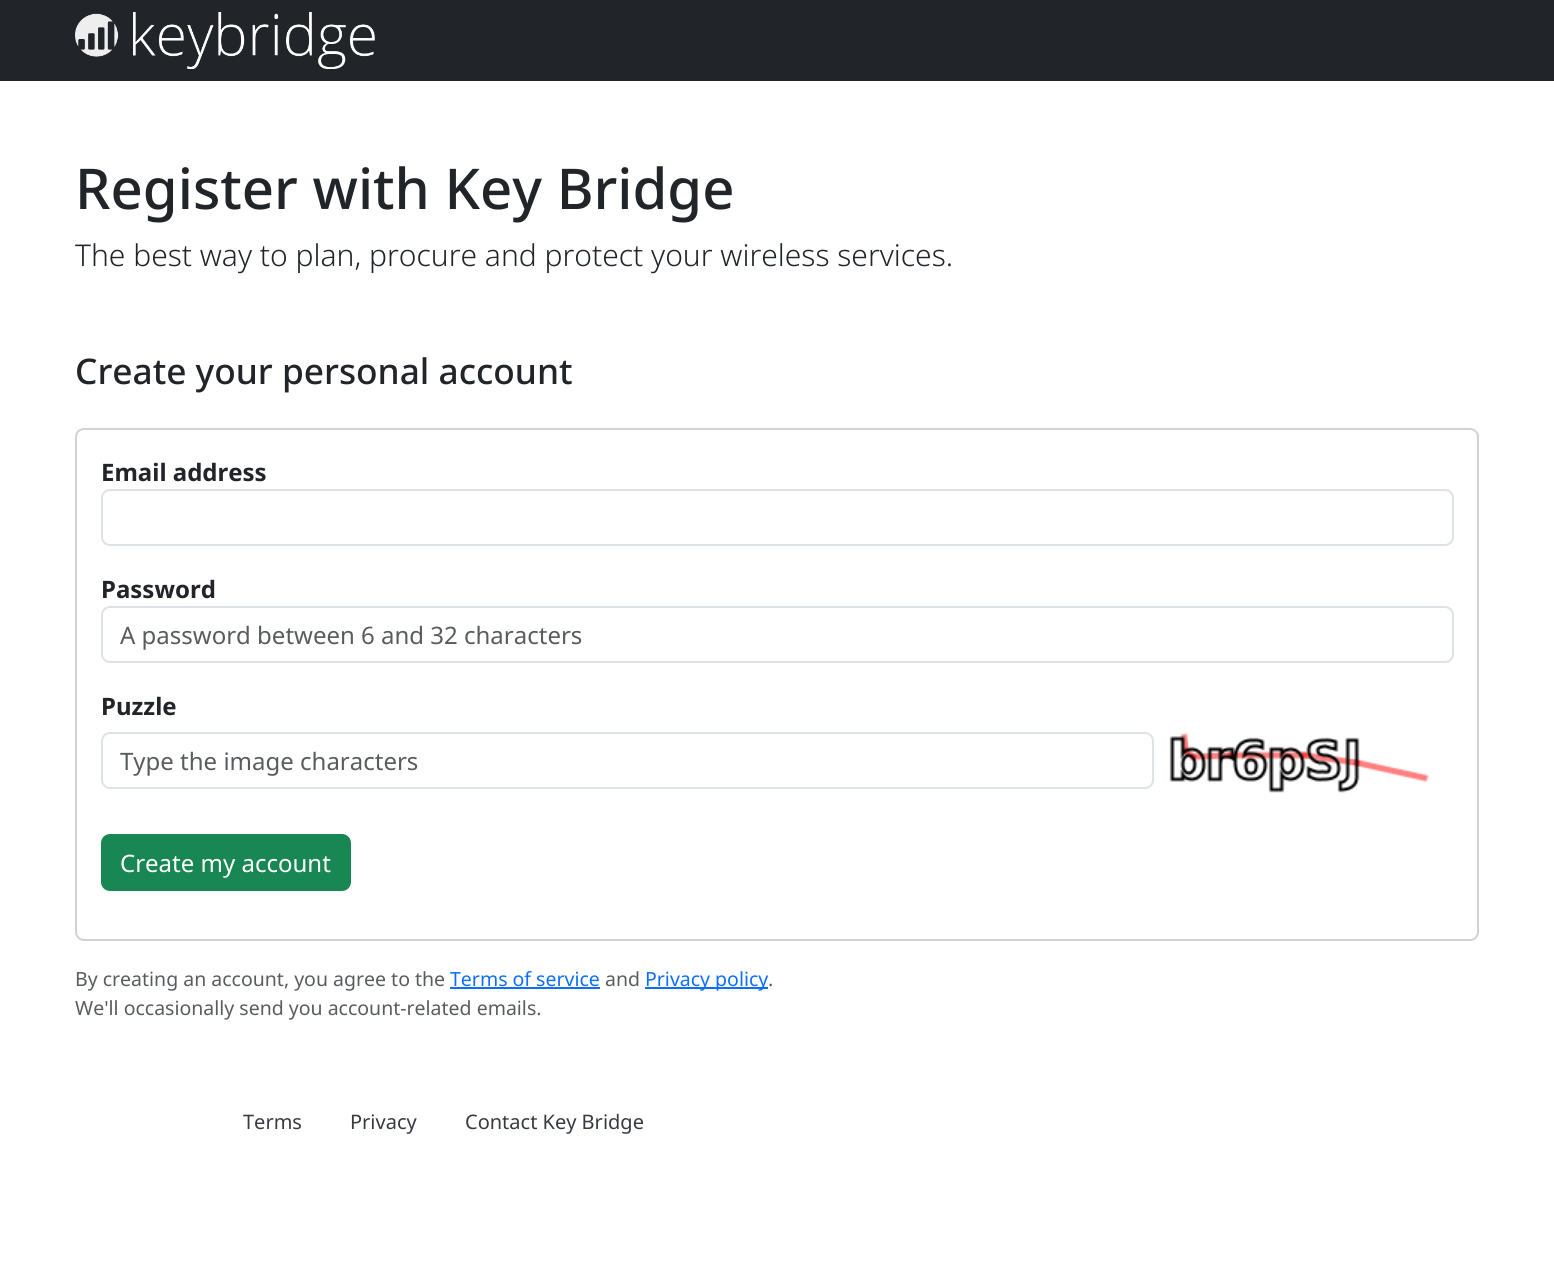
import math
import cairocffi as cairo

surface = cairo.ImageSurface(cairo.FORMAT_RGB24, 1554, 1274)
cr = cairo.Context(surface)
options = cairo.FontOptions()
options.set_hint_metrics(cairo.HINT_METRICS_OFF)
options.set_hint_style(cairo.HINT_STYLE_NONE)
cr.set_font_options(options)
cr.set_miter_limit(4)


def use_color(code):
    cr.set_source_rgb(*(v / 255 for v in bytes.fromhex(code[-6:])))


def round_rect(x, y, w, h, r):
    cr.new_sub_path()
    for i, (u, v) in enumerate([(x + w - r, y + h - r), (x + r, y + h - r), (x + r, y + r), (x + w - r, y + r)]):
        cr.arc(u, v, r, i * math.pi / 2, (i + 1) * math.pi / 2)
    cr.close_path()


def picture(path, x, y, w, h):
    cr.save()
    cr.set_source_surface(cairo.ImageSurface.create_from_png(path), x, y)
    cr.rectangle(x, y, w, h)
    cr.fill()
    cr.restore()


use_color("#ffffff")
cr.paint()
use_color("#212529")
cr.rectangle(0, 0, 1554, 81)
cr.fill()
picture("img1.png", 75, 12, 300, 57)
cr.select_font_face("Noto Sans Medium")
cr.set_font_size(56.25)
cr.move_to(75, 209)
cr.show_text("Register with Key Bridge")
cr.select_font_face("Noto Sans Light")
cr.set_font_size(30)
cr.move_to(75, 266)
cr.show_text("The best way to plan, procure and protect your wireless services.")
cr.select_font_face("Noto Sans Medium")
cr.set_font_size(35.25)
cr.move_to(75, 384)
cr.show_text("Create your personal account")
round_rect(76, 429, 1402, 511, 8)
use_color("#d2d2d2")
cr.stroke()
cr.select_font_face("Noto Sans", cairo.FONT_SLANT_NORMAL, cairo.FONT_WEIGHT_BOLD)
cr.set_font_size(24)
use_color("#212529")
cr.move_to(101, 481)
cr.show_text("Email address")
round_rect(102, 490, 1351, 55, 8)
use_color("#dee2e6")
cr.stroke()
use_color("#212529")
cr.move_to(101, 598)
cr.show_text("Password")
round_rect(102, 607, 1351, 55, 8)
use_color("#dee2e6")
cr.stroke()
cr.select_font_face("Noto Sans")
use_color("#595c5f")
cr.move_to(120, 644)
cr.show_text("A password between 6 and 32 characters")
cr.select_font_face("Noto Sans", cairo.FONT_SLANT_NORMAL, cairo.FONT_WEIGHT_BOLD)
use_color("#212529")
cr.move_to(101, 715)
cr.show_text("Puzzle")
round_rect(102, 733, 1051, 55, 8)
use_color("#dee2e6")
cr.stroke()
cr.select_font_face("Noto Sans")
use_color("#595c5f")
cr.move_to(120, 770)
cr.show_text("Type the image characters")
picture("img2.png", 1169, 733, 260, 60)
use_color("#198754")
round_rect(102, 835, 248, 55, 8)
cr.fill_preserve()
cr.stroke()
use_color("#ffffff")
cr.move_to(120, 872)
cr.show_text("Create my account")
cr.set_font_size(19.5)
use_color("#595c5f")
cr.move_to(75, 986)
cr.show_text("By creating an account, you agree to the")
use_color("#0d6efd")
cr.move_to(450, 986)
cr.show_text("Terms of service")
cr.rectangle(450, 987, 150, 2)
cr.fill()
use_color("#595c5f")
cr.move_to(605, 986)
cr.show_text("and")
use_color("#0d6efd")
cr.rectangle(645, 987, 123, 2)
cr.fill()
cr.move_to(645, 986)
cr.show_text("Privacy policy")
use_color("#595c5f")
cr.move_to(768, 986)
cr.show_text(".")
cr.move_to(75, 1015)
cr.show_text("We'll occasionally send you account-related emails.")
cr.set_font_size(20)
use_color("#373a40")
cr.move_to(243, 1129)
cr.show_text("Terms")
cr.move_to(350, 1129)
cr.show_text("Privacy")
cr.move_to(465, 1129)
cr.show_text("Contact Key Bridge")
surface.write_to_png("result.png")
